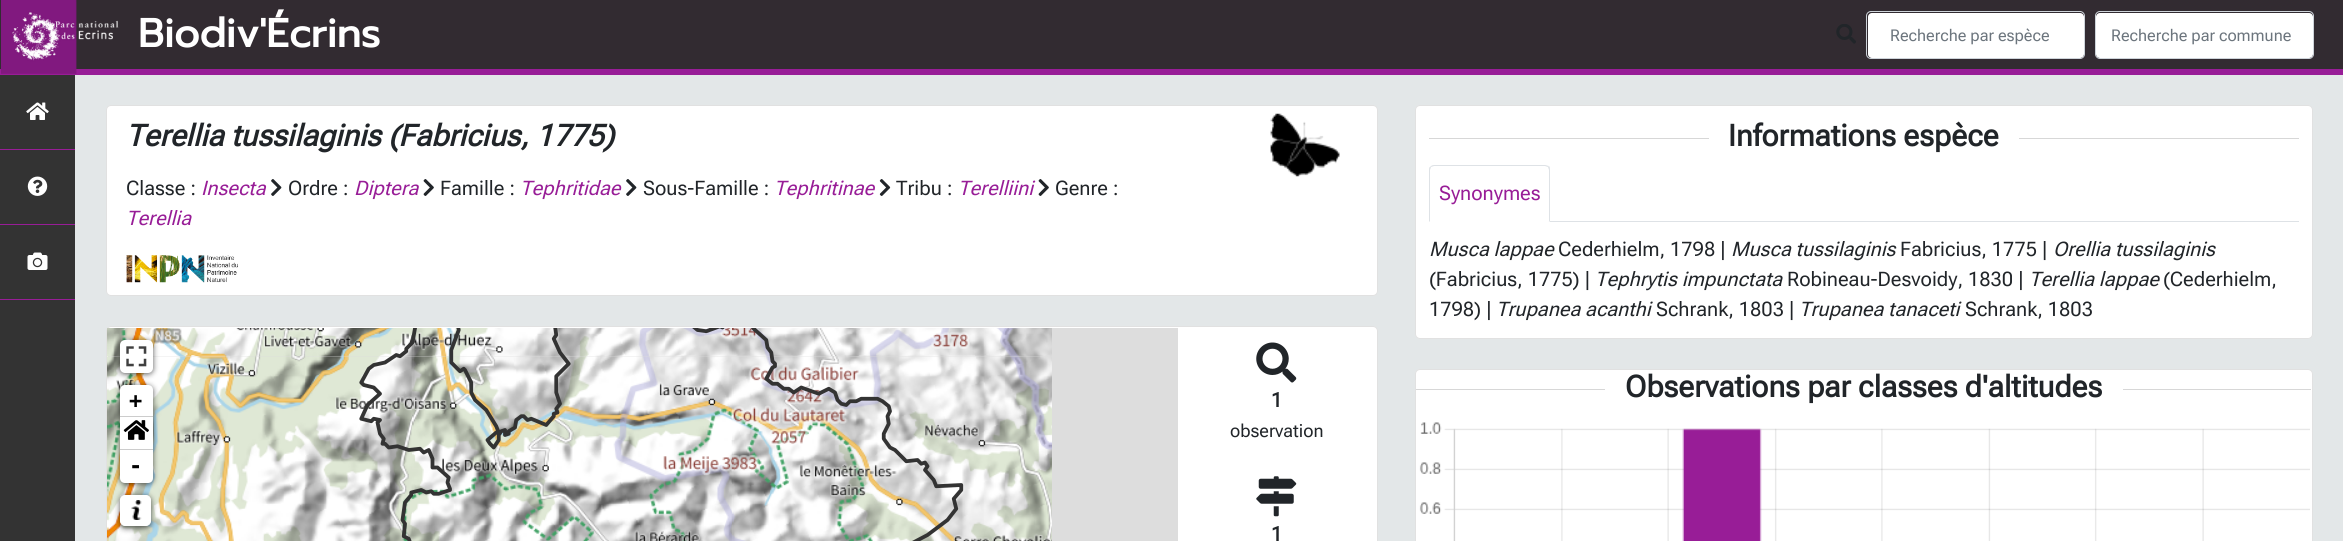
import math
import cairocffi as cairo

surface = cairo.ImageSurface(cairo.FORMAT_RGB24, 2343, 541)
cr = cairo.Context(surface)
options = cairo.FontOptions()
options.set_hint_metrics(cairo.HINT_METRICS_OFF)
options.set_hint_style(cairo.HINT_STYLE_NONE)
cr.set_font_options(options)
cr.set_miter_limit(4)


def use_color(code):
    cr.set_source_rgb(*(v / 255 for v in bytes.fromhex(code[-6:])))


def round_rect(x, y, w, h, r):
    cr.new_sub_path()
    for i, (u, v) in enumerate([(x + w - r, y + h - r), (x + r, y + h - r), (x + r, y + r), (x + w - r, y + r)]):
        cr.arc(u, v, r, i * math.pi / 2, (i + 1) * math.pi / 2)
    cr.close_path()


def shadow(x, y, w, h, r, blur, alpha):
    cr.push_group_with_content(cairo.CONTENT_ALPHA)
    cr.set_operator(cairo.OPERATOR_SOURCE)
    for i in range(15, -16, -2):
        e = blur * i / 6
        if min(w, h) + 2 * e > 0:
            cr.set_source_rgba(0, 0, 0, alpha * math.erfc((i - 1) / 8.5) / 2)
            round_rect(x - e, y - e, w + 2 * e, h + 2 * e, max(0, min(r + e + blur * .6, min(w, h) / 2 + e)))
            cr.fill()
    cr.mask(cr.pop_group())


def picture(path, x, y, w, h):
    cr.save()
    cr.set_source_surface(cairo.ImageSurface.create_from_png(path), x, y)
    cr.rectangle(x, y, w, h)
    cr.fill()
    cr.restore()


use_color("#e3e7e8")
cr.paint()
use_color("#322b31")
cr.rectangle(0, 0, 2343, 69)
cr.fill()
use_color("#981d97")
cr.rectangle(0, 69, 2343, 6)
cr.fill()
picture("img1.png", 1, 0, 118, 74)
cr.select_font_face("Prompt", cairo.FONT_SLANT_NORMAL, cairo.FONT_WEIGHT_BOLD)
cr.set_font_size(40)
use_color("#ffffff")
cr.move_to(138, 47)
cr.show_text("Biodiv'Écrins")
picture("img2.png", 1836, 24, 20, 20)
round_rect(1868, 13, 216, 45, 4)
cr.fill()
round_rect(1866.5, 11.5, 218, 47, 4.5)
use_color("#ced4da")
cr.set_line_width(1)
cr.stroke()
cr.select_font_face("Roboto Flex")
cr.set_font_size(16.25)
use_color("#6c757d")
cr.move_to(1890, 41)
cr.show_text("Recherche par espèce")
use_color("#ffffff")
round_rect(2096, 13, 217, 45, 4)
cr.fill()
round_rect(2095.5, 11.5, 218, 47, 4.5)
use_color("#ced4da")
cr.stroke()
use_color("#6c757d")
cr.move_to(2111, 41)
cr.show_text("Recherche par commune")
use_color("#333333")
cr.rectangle(0, 75, 75, 466)
cr.fill()
use_color("#981d97")
cr.rectangle(0, 149, 75, 1)
cr.fill()
picture("img3.png", 26, 102, 23, 18)
cr.rectangle(0, 224, 75, 1)
cr.fill()
picture("img4.png", 27, 176, 21, 20)
cr.rectangle(0, 299, 75, 1)
cr.fill()
picture("img5.png", 27, 252, 21, 18)
use_color("#ffffff")
round_rect(106, 105, 1272, 191, 5)
cr.fill()
round_rect(106.5, 105.5, 1271, 190, 4.5)
cr.set_source_rgba(0, 0, 0, 0.12)
cr.stroke()
cr.select_font_face("Roboto Flex", cairo.FONT_SLANT_ITALIC, cairo.FONT_WEIGHT_BOLD)
cr.set_font_size(30)
use_color("#212529")
cr.move_to(126, 146)
cr.show_text("Terellia tussilaginis (Fabricius, 1775)")
cr.select_font_face("Roboto Flex")
cr.set_font_size(20)
cr.move_to(126, 195)
cr.show_text("Classe :")
cr.select_font_face("Roboto Flex", cairo.FONT_SLANT_ITALIC)
use_color("#981d97")
cr.move_to(201, 195)
cr.show_text("Insecta")
picture("img6.png", 271, 179, 11, 17)
cr.select_font_face("Roboto Flex")
use_color("#212529")
cr.move_to(288, 195)
cr.show_text("Ordre :")
cr.select_font_face("Roboto Flex", cairo.FONT_SLANT_ITALIC)
use_color("#981d97")
cr.move_to(354, 195)
cr.show_text("Diptera")
picture("img7.png", 423, 179, 11, 17)
cr.select_font_face("Roboto Flex")
use_color("#212529")
cr.move_to(440, 195)
cr.show_text("Famille :")
cr.select_font_face("Roboto Flex", cairo.FONT_SLANT_ITALIC)
use_color("#981d97")
cr.move_to(520, 195)
cr.show_text("Tephritidae")
picture("img6.png", 626, 179, 11, 17)
cr.select_font_face("Roboto Flex")
use_color("#212529")
cr.move_to(643, 195)
cr.show_text("Sous-Famille :")
cr.select_font_face("Roboto Flex", cairo.FONT_SLANT_ITALIC)
use_color("#981d97")
cr.move_to(774, 195)
cr.show_text("Tephritinae")
picture("img8.png", 879, 179, 12, 17)
cr.select_font_face("Roboto Flex")
use_color("#212529")
cr.move_to(896, 195)
cr.show_text("Tribu :")
cr.select_font_face("Roboto Flex", cairo.FONT_SLANT_ITALIC)
use_color("#981d97")
cr.move_to(958, 195)
cr.show_text("Terelliini")
picture("img7.png", 1038, 179, 11, 17)
cr.select_font_face("Roboto Flex")
use_color("#212529")
cr.move_to(1055, 195)
cr.show_text("Genre :")
cr.select_font_face("Roboto Flex", cairo.FONT_SLANT_ITALIC)
use_color("#981d97")
cr.move_to(126, 225)
cr.show_text("Terellia")
picture("img9.png", 126, 255, 112, 28)
picture("img10.png", 1270, 113, 70, 64)
use_color("#ffffff")
round_rect(106, 326, 1272, 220, 5)
cr.fill()
round_rect(106.5, 326.5, 1271, 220, 4.5)
cr.set_source_rgba(0, 0, 0, 0.12)
cr.stroke()
use_color("#dddddd")
cr.rectangle(108, 328, 1070, 213)
cr.fill()
picture("img11.png", 107, 328, 305, 28)
picture("img12.png", 412, 328, 320, 28)
picture("img13.png", 732, 328, 320, 28)
picture("img14.png", 107, 356, 305, 185)
picture("img15.png", 412, 356, 320, 185)
picture("img16.png", 732, 356, 320, 185)
picture("img17.png", 359, 328, 605, 213)
use_color("#000000")
shadow(120, 341, 33, 33, 5, 3, 0.65)
use_color("#ffffff")
round_rect(120, 340, 33, 33, 5)
cr.fill()
picture("img18.png", 126, 346, 21, 21)
use_color("#000000")
shadow(120, 386, 33, 98, 5, 3, 0.65)
use_color("#ffffff")
cr.new_path()
cr.move_to(125, 385)
cr.line_to(148, 385)
cr.curve_to(151, 385, 153, 387, 153, 390)
cr.line_to(153, 418)
cr.line_to(120, 418)
cr.line_to(120, 390)
cr.curve_to(120, 387, 122, 385, 125, 385)
cr.close_path()
cr.fill()
use_color("#cccccc")
cr.rectangle(120, 416, 33, 1)
cr.fill()
cr.select_font_face("DejaVu Sans Mono", cairo.FONT_SLANT_NORMAL, cairo.FONT_WEIGHT_BOLD)
cr.set_font_size(22)
use_color("#000000")
cr.move_to(129, 408)
cr.show_text("+")
use_color("#ffffff")
cr.rectangle(120, 418, 33, 31)
cr.fill()
use_color("#cccccc")
cr.rectangle(120, 449, 33, 1)
cr.fill()
picture("img19.png", 123, 420, 26, 20)
use_color("#ffffff")
cr.new_path()
cr.move_to(120, 450)
cr.line_to(153, 450)
cr.line_to(153, 478)
cr.curve_to(153, 481, 151, 483, 148, 483)
cr.line_to(125, 483)
cr.curve_to(122, 483, 120, 481, 120, 478)
cr.close_path()
cr.fill()
use_color("#000000")
cr.move_to(129, 473)
cr.show_text("-")
use_color("#000000")
shadow(120, 496, 31, 32, 5, 3, 0.65)
use_color("#ffffff")
round_rect(120.5, 495.5, 30, 30, 4.5)
cr.fill_preserve()
cr.stroke()
picture("img20.png", 131, 500, 11, 20)
picture("img21.png", 1256, 342, 41, 41)
cr.select_font_face("Roboto Flex", cairo.FONT_SLANT_NORMAL, cairo.FONT_WEIGHT_BOLD)
cr.set_font_size(20)
use_color("#212529")
cr.move_to(1271, 407)
cr.show_text("1")
cr.select_font_face("Roboto Flex")
cr.set_font_size(18)
cr.move_to(1230, 437)
cr.show_text("observation")
picture("img22.png", 1256, 476, 41, 41)
cr.select_font_face("Roboto Flex", cairo.FONT_SLANT_NORMAL, cairo.FONT_WEIGHT_BOLD)
cr.set_font_size(20)
cr.move_to(1271, 541)
cr.show_text("1")
use_color("#ffffff")
round_rect(1415, 105, 898, 234, 5)
cr.fill()
round_rect(1415.5, 105.5, 897, 233, 4.5)
cr.set_source_rgba(0, 0, 0, 0.12)
cr.stroke()
use_color("#d7d7d7")
cr.rectangle(1429, 138, 280, 1)
cr.fill()
cr.set_font_size(30)
use_color("#212529")
cr.move_to(1728, 146)
cr.show_text("Informations espèce")
use_color("#d7d7d7")
cr.rectangle(2019, 138, 280, 1)
cr.fill()
use_color("#dee2e6")
cr.rectangle(1550, 221, 749, 1)
cr.fill()
cr.new_path()
cr.move_to(1434, 165)
cr.curve_to(1432, 165, 1431, 166, 1430, 167)
cr.line_to(1431, 167)
cr.line_to(1434, 166)
cr.line_to(1545, 166)
cr.line_to(1548, 167)
cr.line_to(1549, 166)
cr.curve_to(1548, 166, 1546, 165, 1545, 165)
cr.close_path()
cr.fill()
cr.new_path()
cr.move_to(1550, 222)
cr.line_to(1550, 170)
cr.curve_to(1550, 168, 1550, 167, 1549, 166)
cr.line_to(1548, 167)
cr.line_to(1549, 170)
cr.line_to(1549, 221)
cr.line_to(1548, 221)
cr.close_path()
cr.fill()
use_color("#ffffff")
cr.new_path()
cr.move_to(1550, 222)
cr.line_to(1429, 222)
cr.line_to(1430, 221)
cr.line_to(1548, 221)
cr.close_path()
cr.fill()
use_color("#dee2e6")
cr.new_path()
cr.move_to(1430, 167)
cr.curve_to(1429, 167, 1429, 169, 1429, 170)
cr.line_to(1429, 222)
cr.line_to(1430, 221)
cr.line_to(1430, 170)
cr.line_to(1431, 167)
cr.close_path()
cr.fill()
cr.select_font_face("Roboto Flex")
cr.set_font_size(20)
use_color("#981d97")
cr.move_to(1439, 200)
cr.show_text("Synonymes")
cr.select_font_face("Roboto Flex", cairo.FONT_SLANT_ITALIC)
use_color("#212529")
cr.move_to(1429, 256)
cr.show_text("Musca lappae")
cr.select_font_face("Roboto Flex")
cr.move_to(1558, 256)
cr.show_text("Cederhielm, 1798 |")
cr.select_font_face("Roboto Flex", cairo.FONT_SLANT_ITALIC)
cr.move_to(1731, 256)
cr.show_text("Musca tussilaginis")
cr.select_font_face("Roboto Flex")
cr.move_to(1900, 256)
cr.show_text("Fabricius, 1775 |")
cr.select_font_face("Roboto Flex", cairo.FONT_SLANT_ITALIC)
cr.move_to(2053, 256)
cr.show_text("Orellia tussilaginis")
cr.select_font_face("Roboto Flex")
cr.move_to(1429, 286)
cr.show_text("(Fabricius, 1775) |")
cr.select_font_face("Roboto Flex", cairo.FONT_SLANT_ITALIC)
cr.move_to(1595, 286)
cr.show_text("Tephrytis impunctata")
cr.select_font_face("Roboto Flex")
cr.move_to(1787, 286)
cr.show_text("Robineau-Desvoidy, 1830 |")
cr.select_font_face("Roboto Flex", cairo.FONT_SLANT_ITALIC)
cr.move_to(2029, 286)
cr.show_text("Terellia lappae")
cr.select_font_face("Roboto Flex")
cr.move_to(2163, 286)
cr.show_text("(Cederhielm,")
cr.move_to(1429, 316)
cr.show_text("1798) |")
cr.select_font_face("Roboto Flex", cairo.FONT_SLANT_ITALIC)
cr.move_to(1496, 316)
cr.show_text("Trupanea acanthi")
cr.select_font_face("Roboto Flex")
cr.move_to(1656, 316)
cr.show_text("Schrank, 1803 |")
cr.select_font_face("Roboto Flex", cairo.FONT_SLANT_ITALIC)
cr.move_to(1799, 316)
cr.show_text("Trupanea tanaceti")
cr.select_font_face("Roboto Flex")
cr.move_to(1965, 316)
cr.show_text("Schrank, 1803")
use_color("#ffffff")
round_rect(1415, 369, 898, 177, 5)
cr.fill()
round_rect(1415.5, 369.5, 897, 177, 4.5)
cr.set_source_rgba(0, 0, 0, 0.12)
cr.stroke()
use_color("#d7d7d7")
cr.rectangle(1416, 389, 189, 1)
cr.fill()
cr.select_font_face("Roboto Flex", cairo.FONT_SLANT_NORMAL, cairo.FONT_WEIGHT_BOLD)
cr.set_font_size(30)
use_color("#212529")
cr.move_to(1625, 397)
cr.show_text("Observations par classes d'altitudes")
use_color("#d7d7d7")
cr.rectangle(2123, 389, 188, 1)
cr.fill()
picture("img23.png", 1419, 422, 891, 119)
surface.write_to_png("result.png")
